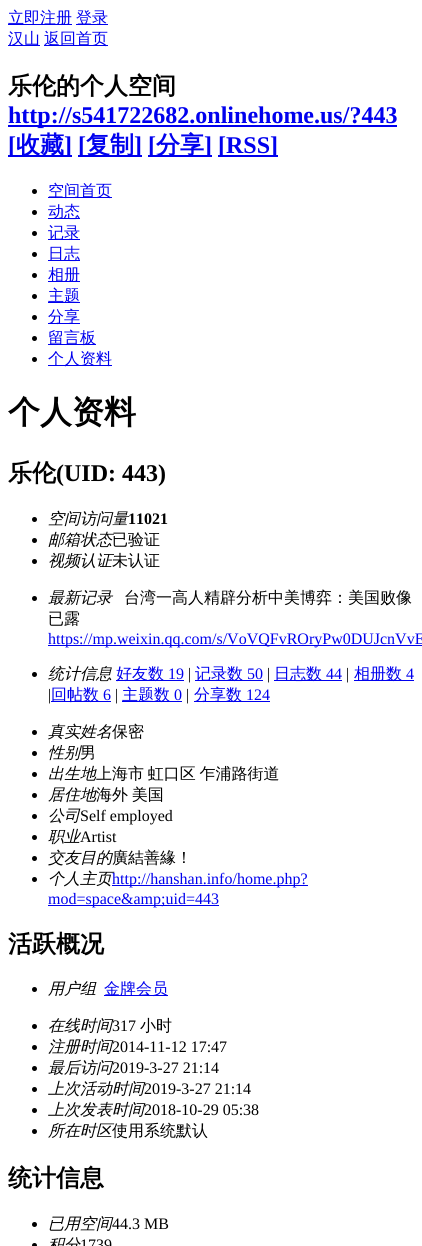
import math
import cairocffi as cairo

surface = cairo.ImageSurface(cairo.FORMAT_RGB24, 422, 1246)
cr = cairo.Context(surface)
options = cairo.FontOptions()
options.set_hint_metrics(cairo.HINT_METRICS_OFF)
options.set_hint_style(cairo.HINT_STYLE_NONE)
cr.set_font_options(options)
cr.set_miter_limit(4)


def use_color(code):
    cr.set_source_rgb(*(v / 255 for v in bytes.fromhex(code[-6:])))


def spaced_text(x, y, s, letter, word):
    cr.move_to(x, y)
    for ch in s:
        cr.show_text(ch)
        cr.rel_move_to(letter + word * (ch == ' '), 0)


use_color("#ffffff")
cr.paint()
use_color("#0000ee")
cr.rectangle(8, 24, 64, 1)
cr.fill()
cr.select_font_face("WenQuanYi Zen Hei Medium")
cr.set_font_size(16)
cr.move_to(8, 23)
cr.show_text("立即注册")
cr.rectangle(76, 24, 32, 1)
cr.fill()
cr.move_to(76, 23)
cr.show_text("登录")
cr.rectangle(8, 45, 32, 1)
cr.fill()
cr.move_to(8, 44)
cr.show_text("汉山")
cr.rectangle(44, 45, 64, 1)
cr.fill()
cr.move_to(44, 44)
cr.show_text("返回首页")
cr.select_font_face("WenQuanYi Zen Hei", cairo.FONT_SLANT_NORMAL, cairo.FONT_WEIGHT_BOLD)
cr.set_font_size(24)
use_color("#000000")
cr.move_to(8, 94)
cr.show_text("乐伦的个人空间")
use_color("#0000ee")
cr.rectangle(8, 125, 389, 2)
cr.fill()
cr.select_font_face("Liberation Serif", cairo.FONT_SLANT_NORMAL, cairo.FONT_WEIGHT_BOLD)
cr.move_to(8, 123)
cr.show_text("http://s541722682.onlinehome.us/?443")
cr.rectangle(8, 155, 64, 2)
cr.fill()
cr.move_to(8, 153)
cr.show_text("[")
cr.select_font_face("WenQuanYi Zen Hei", cairo.FONT_SLANT_NORMAL, cairo.FONT_WEIGHT_BOLD)
cr.move_to(16, 153)
cr.show_text("收藏")
cr.select_font_face("Liberation Serif", cairo.FONT_SLANT_NORMAL, cairo.FONT_WEIGHT_BOLD)
cr.move_to(64, 153)
cr.show_text("]")
cr.rectangle(78, 155, 64, 2)
cr.fill()
cr.move_to(78, 153)
cr.show_text("[")
cr.select_font_face("WenQuanYi Zen Hei", cairo.FONT_SLANT_NORMAL, cairo.FONT_WEIGHT_BOLD)
cr.move_to(86, 153)
cr.show_text("复制")
cr.select_font_face("Liberation Serif", cairo.FONT_SLANT_NORMAL, cairo.FONT_WEIGHT_BOLD)
cr.move_to(134, 153)
cr.show_text("]")
cr.rectangle(148, 155, 64, 2)
cr.fill()
cr.move_to(148, 153)
cr.show_text("[")
cr.select_font_face("WenQuanYi Zen Hei", cairo.FONT_SLANT_NORMAL, cairo.FONT_WEIGHT_BOLD)
cr.move_to(156, 153)
cr.show_text("分享")
cr.select_font_face("Liberation Serif", cairo.FONT_SLANT_NORMAL, cairo.FONT_WEIGHT_BOLD)
cr.move_to(204, 153)
cr.show_text("]")
cr.rectangle(218, 155, 60, 2)
cr.fill()
cr.move_to(218, 153)
cr.show_text("[RSS]")
use_color("#000000")
cr.new_path()
cr.arc(34.5, 191.5, 2.5, 0, 2 * math.pi)
cr.fill()
use_color("#0000ee")
cr.rectangle(48, 197, 64, 1)
cr.fill()
cr.select_font_face("WenQuanYi Zen Hei Medium")
cr.set_font_size(16)
cr.move_to(48, 196)
cr.show_text("空间首页")
use_color("#000000")
cr.new_path()
cr.arc(34.5, 212.5, 2.5, 0, 2 * math.pi)
cr.fill()
use_color("#0000ee")
cr.rectangle(48, 218, 32, 1)
cr.fill()
cr.move_to(48, 217)
cr.show_text("动态")
use_color("#000000")
cr.new_path()
cr.arc(34.5, 233.5, 2.5, 0, 2 * math.pi)
cr.fill()
use_color("#0000ee")
cr.rectangle(48, 239, 32, 1)
cr.fill()
cr.move_to(48, 238)
cr.show_text("记录")
use_color("#000000")
cr.new_path()
cr.arc(34.5, 254.5, 2.5, 0, 2 * math.pi)
cr.fill()
use_color("#0000ee")
cr.rectangle(48, 260, 32, 1)
cr.fill()
cr.move_to(48, 259)
cr.show_text("日志")
use_color("#000000")
cr.new_path()
cr.arc(34.5, 275.5, 2.5, 0, 2 * math.pi)
cr.fill()
use_color("#0000ee")
cr.rectangle(48, 281, 32, 1)
cr.fill()
cr.move_to(48, 280)
cr.show_text("相册")
use_color("#000000")
cr.new_path()
cr.arc(34.5, 296.5, 2.5, 0, 2 * math.pi)
cr.fill()
use_color("#0000ee")
cr.rectangle(48, 302, 32, 1)
cr.fill()
cr.move_to(48, 301)
cr.show_text("主题")
use_color("#000000")
cr.new_path()
cr.arc(34.5, 317.5, 2.5, 0, 2 * math.pi)
cr.fill()
use_color("#0000ee")
cr.rectangle(48, 323, 32, 1)
cr.fill()
cr.move_to(48, 322)
cr.show_text("分享")
use_color("#000000")
cr.new_path()
cr.arc(34.5, 338.5, 2.5, 0, 2 * math.pi)
cr.fill()
use_color("#0000ee")
cr.rectangle(48, 344, 48, 1)
cr.fill()
cr.move_to(48, 343)
cr.show_text("留言板")
use_color("#000000")
cr.new_path()
cr.arc(34.5, 359.5, 2.5, 0, 2 * math.pi)
cr.fill()
use_color("#0000ee")
cr.rectangle(48, 365, 64, 1)
cr.fill()
cr.move_to(48, 364)
cr.show_text("个人资料")
cr.select_font_face("WenQuanYi Zen Hei", cairo.FONT_SLANT_NORMAL, cairo.FONT_WEIGHT_BOLD)
cr.set_font_size(32)
use_color("#000000")
cr.move_to(8, 423)
cr.show_text("个人资料")
cr.set_font_size(24)
cr.move_to(8, 481)
cr.show_text("乐伦")
cr.select_font_face("Liberation Serif", cairo.FONT_SLANT_NORMAL, cairo.FONT_WEIGHT_BOLD)
cr.move_to(56, 481)
cr.show_text("(UID: 443)")
cr.new_path()
cr.arc(34.5, 519.5, 2.5, 0, 2 * math.pi)
cr.fill()
cr.select_font_face("WenQuanYi Zen Hei Medium", cairo.FONT_SLANT_ITALIC)
cr.set_font_size(16)
cr.move_to(48, 524)
cr.show_text("空间访问量")
cr.select_font_face("Liberation Serif", cairo.FONT_SLANT_NORMAL, cairo.FONT_WEIGHT_BOLD)
cr.move_to(128, 524)
cr.show_text("11021")
cr.new_path()
cr.arc(34.5, 540.5, 2.5, 0, 2 * math.pi)
cr.fill()
cr.select_font_face("WenQuanYi Zen Hei Medium", cairo.FONT_SLANT_ITALIC)
cr.move_to(48, 545)
cr.show_text("邮箱状态")
cr.select_font_face("WenQuanYi Zen Hei Medium")
cr.move_to(112, 545)
cr.show_text("已验证")
cr.new_path()
cr.arc(34.5, 561.5, 2.5, 0, 2 * math.pi)
cr.fill()
cr.select_font_face("WenQuanYi Zen Hei Medium", cairo.FONT_SLANT_ITALIC)
cr.move_to(48, 566)
cr.show_text("视频认证")
cr.select_font_face("WenQuanYi Zen Hei Medium")
cr.move_to(112, 566)
cr.show_text("未认证")
cr.new_path()
cr.arc(34.5, 598.5, 2.5, 0, 2 * math.pi)
cr.fill()
cr.select_font_face("WenQuanYi Zen Hei Medium", cairo.FONT_SLANT_ITALIC)
cr.move_to(48, 603)
cr.show_text("最新记录")
cr.select_font_face("WenQuanYi Zen Hei Medium")
cr.move_to(124, 603)
cr.show_text("台湾一高人精辟分析中美博弈：美国败像")
cr.move_to(48, 624)
cr.show_text("已露")
use_color("#0000ee")
cr.rectangle(48, 645, 374, 1)
cr.fill()
cr.select_font_face("Liberation Serif")
cr.move_to(48, 644)
cr.show_text("https://mp.weixin.qq.com/s/VoVQFvROryPw0DUJcnVvE")
use_color("#000000")
cr.new_path()
cr.arc(34.5, 674.5, 2.5, 0, 2 * math.pi)
cr.fill()
cr.select_font_face("WenQuanYi Zen Hei Medium", cairo.FONT_SLANT_ITALIC)
cr.move_to(48, 679)
cr.show_text("统计信息")
use_color("#0000ee")
cr.rectangle(116, 680, 68, 1)
cr.fill()
cr.select_font_face("WenQuanYi Zen Hei Medium")
cr.move_to(116, 679)
cr.show_text("好友数")
cr.select_font_face("Liberation Serif")
cr.move_to(168, 679)
cr.show_text("19")
use_color("#000000")
cr.move_to(188, 679)
cr.show_text("|")
use_color("#0000ee")
cr.rectangle(195, 680, 68, 1)
cr.fill()
cr.select_font_face("WenQuanYi Zen Hei Medium")
cr.move_to(195, 679)
cr.show_text("记录数")
cr.select_font_face("Liberation Serif")
cr.move_to(247, 679)
cr.show_text("50")
use_color("#000000")
cr.move_to(267, 679)
cr.show_text("|")
use_color("#0000ee")
cr.rectangle(274, 680, 68, 1)
cr.fill()
cr.select_font_face("WenQuanYi Zen Hei Medium")
cr.move_to(274, 679)
cr.show_text("日志数")
cr.select_font_face("Liberation Serif")
cr.move_to(326, 679)
cr.show_text("44")
use_color("#000000")
cr.move_to(346, 679)
cr.show_text("|")
use_color("#0000ee")
cr.rectangle(354, 680, 60, 1)
cr.fill()
cr.select_font_face("WenQuanYi Zen Hei Medium")
cr.move_to(354, 679)
cr.show_text("相册数")
cr.select_font_face("Liberation Serif")
cr.move_to(406, 679)
cr.show_text("4")
use_color("#000000")
cr.move_to(48, 700)
cr.show_text("|")
use_color("#0000ee")
cr.rectangle(51, 701, 60, 1)
cr.fill()
cr.select_font_face("WenQuanYi Zen Hei Medium")
cr.move_to(51, 700)
cr.show_text("回帖数")
cr.select_font_face("Liberation Serif")
cr.move_to(103, 700)
cr.show_text("6")
use_color("#000000")
cr.move_to(115, 700)
cr.show_text("|")
use_color("#0000ee")
cr.rectangle(122, 701, 60, 1)
cr.fill()
cr.select_font_face("WenQuanYi Zen Hei Medium")
cr.move_to(122, 700)
cr.show_text("主题数")
cr.select_font_face("Liberation Serif")
cr.move_to(174, 700)
cr.show_text("0")
use_color("#000000")
cr.move_to(186, 700)
cr.show_text("|")
use_color("#0000ee")
cr.rectangle(194, 701, 76, 1)
cr.fill()
cr.select_font_face("WenQuanYi Zen Hei Medium")
cr.move_to(194, 700)
cr.show_text("分享数")
cr.select_font_face("Liberation Serif")
cr.move_to(246, 700)
cr.show_text("124")
use_color("#000000")
cr.new_path()
cr.arc(34.5, 732.5, 2.5, 0, 2 * math.pi)
cr.fill()
cr.select_font_face("WenQuanYi Zen Hei Medium", cairo.FONT_SLANT_ITALIC)
cr.move_to(48, 737)
cr.show_text("真实姓名")
cr.select_font_face("WenQuanYi Zen Hei Medium")
cr.move_to(112, 737)
cr.show_text("保密")
cr.new_path()
cr.arc(34.5, 753.5, 2.5, 0, 2 * math.pi)
cr.fill()
cr.select_font_face("WenQuanYi Zen Hei Medium", cairo.FONT_SLANT_ITALIC)
cr.move_to(48, 758)
cr.show_text("性别")
cr.select_font_face("WenQuanYi Zen Hei Medium")
cr.move_to(80, 758)
cr.show_text("男")
cr.new_path()
cr.arc(34.5, 774.5, 2.5, 0, 2 * math.pi)
cr.fill()
cr.select_font_face("WenQuanYi Zen Hei Medium", cairo.FONT_SLANT_ITALIC)
cr.move_to(48, 779)
cr.show_text("出生地")
cr.select_font_face("WenQuanYi Zen Hei Medium")
spaced_text(96, 779, "上海市 虹口区 乍浦路街道", 0, -1)
cr.new_path()
cr.arc(34.5, 795.5, 2.5, 0, 2 * math.pi)
cr.fill()
cr.select_font_face("WenQuanYi Zen Hei Medium", cairo.FONT_SLANT_ITALIC)
cr.move_to(48, 800)
cr.show_text("居住地")
cr.select_font_face("WenQuanYi Zen Hei Medium")
spaced_text(96, 800, "海外 美国", 0, -1)
cr.new_path()
cr.arc(34.5, 816.5, 2.5, 0, 2 * math.pi)
cr.fill()
cr.select_font_face("WenQuanYi Zen Hei Medium", cairo.FONT_SLANT_ITALIC)
cr.move_to(48, 821)
cr.show_text("公司")
cr.select_font_face("Liberation Serif")
cr.move_to(80, 821)
cr.show_text("Self employed")
cr.new_path()
cr.arc(34.5, 837.5, 2.5, 0, 2 * math.pi)
cr.fill()
cr.select_font_face("WenQuanYi Zen Hei Medium", cairo.FONT_SLANT_ITALIC)
cr.move_to(48, 842)
cr.show_text("职业")
cr.select_font_face("Liberation Serif")
cr.move_to(80, 842)
cr.show_text("Artist")
cr.new_path()
cr.arc(34.5, 858.5, 2.5, 0, 2 * math.pi)
cr.fill()
cr.select_font_face("WenQuanYi Zen Hei Medium", cairo.FONT_SLANT_ITALIC)
cr.move_to(48, 863)
cr.show_text("交友目的")
cr.select_font_face("WenQuanYi Zen Hei Medium")
cr.move_to(112, 863)
cr.show_text("廣結善緣！")
cr.new_path()
cr.arc(34.5, 879.5, 2.5, 0, 2 * math.pi)
cr.fill()
cr.select_font_face("WenQuanYi Zen Hei Medium", cairo.FONT_SLANT_ITALIC)
cr.move_to(48, 884)
cr.show_text("个人主页")
use_color("#0000ee")
cr.rectangle(112, 885, 196, 1)
cr.fill()
cr.select_font_face("Liberation Serif")
cr.move_to(112, 884)
cr.show_text("http://hanshan.info/home.php?")
cr.rectangle(48, 905, 171, 1)
cr.fill()
cr.move_to(48, 904)
cr.show_text("mod=space&amp;uid=443")
cr.select_font_face("WenQuanYi Zen Hei", cairo.FONT_SLANT_NORMAL, cairo.FONT_WEIGHT_BOLD)
cr.set_font_size(24)
use_color("#000000")
cr.move_to(8, 952)
cr.show_text("活跃概况")
cr.new_path()
cr.arc(34.5, 989.5, 2.5, 0, 2 * math.pi)
cr.fill()
cr.select_font_face("WenQuanYi Zen Hei Medium", cairo.FONT_SLANT_ITALIC)
cr.set_font_size(16)
cr.move_to(48, 994)
cr.show_text("用户组")
use_color("#0000ee")
cr.rectangle(104, 995, 64, 1)
cr.fill()
cr.select_font_face("WenQuanYi Zen Hei Medium")
cr.move_to(104, 994)
cr.show_text("金牌会员")
use_color("#000000")
cr.new_path()
cr.arc(34.5, 1026.5, 2.5, 0, 2 * math.pi)
cr.fill()
cr.select_font_face("WenQuanYi Zen Hei Medium", cairo.FONT_SLANT_ITALIC)
cr.move_to(48, 1031)
cr.show_text("在线时间")
cr.select_font_face("Liberation Serif")
cr.move_to(112, 1031)
cr.show_text("317")
cr.select_font_face("WenQuanYi Zen Hei Medium")
cr.move_to(140, 1031)
cr.show_text("小时")
cr.new_path()
cr.arc(34.5, 1047.5, 2.5, 0, 2 * math.pi)
cr.fill()
cr.select_font_face("WenQuanYi Zen Hei Medium", cairo.FONT_SLANT_ITALIC)
cr.move_to(48, 1052)
cr.show_text("注册时间")
cr.select_font_face("Liberation Serif")
cr.move_to(112, 1052)
cr.show_text("2014-11-12 17:47")
cr.new_path()
cr.arc(34.5, 1068.5, 2.5, 0, 2 * math.pi)
cr.fill()
cr.select_font_face("WenQuanYi Zen Hei Medium", cairo.FONT_SLANT_ITALIC)
cr.move_to(48, 1073)
cr.show_text("最后访问")
cr.select_font_face("Liberation Serif")
cr.move_to(112, 1073)
cr.show_text("2019-3-27 21:14")
cr.new_path()
cr.arc(34.5, 1089.5, 2.5, 0, 2 * math.pi)
cr.fill()
cr.select_font_face("WenQuanYi Zen Hei Medium", cairo.FONT_SLANT_ITALIC)
cr.move_to(48, 1094)
cr.show_text("上次活动时间")
cr.select_font_face("Liberation Serif")
cr.move_to(144, 1094)
cr.show_text("2019-3-27 21:14")
cr.new_path()
cr.arc(34.5, 1110.5, 2.5, 0, 2 * math.pi)
cr.fill()
cr.select_font_face("WenQuanYi Zen Hei Medium", cairo.FONT_SLANT_ITALIC)
cr.move_to(48, 1115)
cr.show_text("上次发表时间")
cr.select_font_face("Liberation Serif")
cr.move_to(144, 1115)
cr.show_text("2018-10-29 05:38")
cr.new_path()
cr.arc(34.5, 1131.5, 2.5, 0, 2 * math.pi)
cr.fill()
cr.select_font_face("WenQuanYi Zen Hei Medium", cairo.FONT_SLANT_ITALIC)
cr.move_to(48, 1136)
cr.show_text("所在时区")
cr.select_font_face("WenQuanYi Zen Hei Medium")
cr.move_to(112, 1136)
cr.show_text("使用系统默认")
cr.select_font_face("WenQuanYi Zen Hei", cairo.FONT_SLANT_NORMAL, cairo.FONT_WEIGHT_BOLD)
cr.set_font_size(24)
cr.move_to(8, 1186)
cr.show_text("统计信息")
cr.new_path()
cr.arc(34.5, 1224.5, 2.5, 0, 2 * math.pi)
cr.fill()
cr.select_font_face("WenQuanYi Zen Hei Medium", cairo.FONT_SLANT_ITALIC)
cr.set_font_size(16)
cr.move_to(48, 1229)
cr.show_text("已用空间")
cr.select_font_face("Liberation Serif")
cr.move_to(112, 1229)
cr.show_text("44.3 MB")
cr.new_path()
cr.arc(34.5, 1245.5, 2.5, 0, 2 * math.pi)
cr.fill()
cr.select_font_face("WenQuanYi Zen Hei Medium", cairo.FONT_SLANT_ITALIC)
cr.move_to(48, 1250)
cr.show_text("积分")
cr.select_font_face("Liberation Serif")
cr.move_to(80, 1250)
cr.show_text("1739")
surface.write_to_png("result.png")
